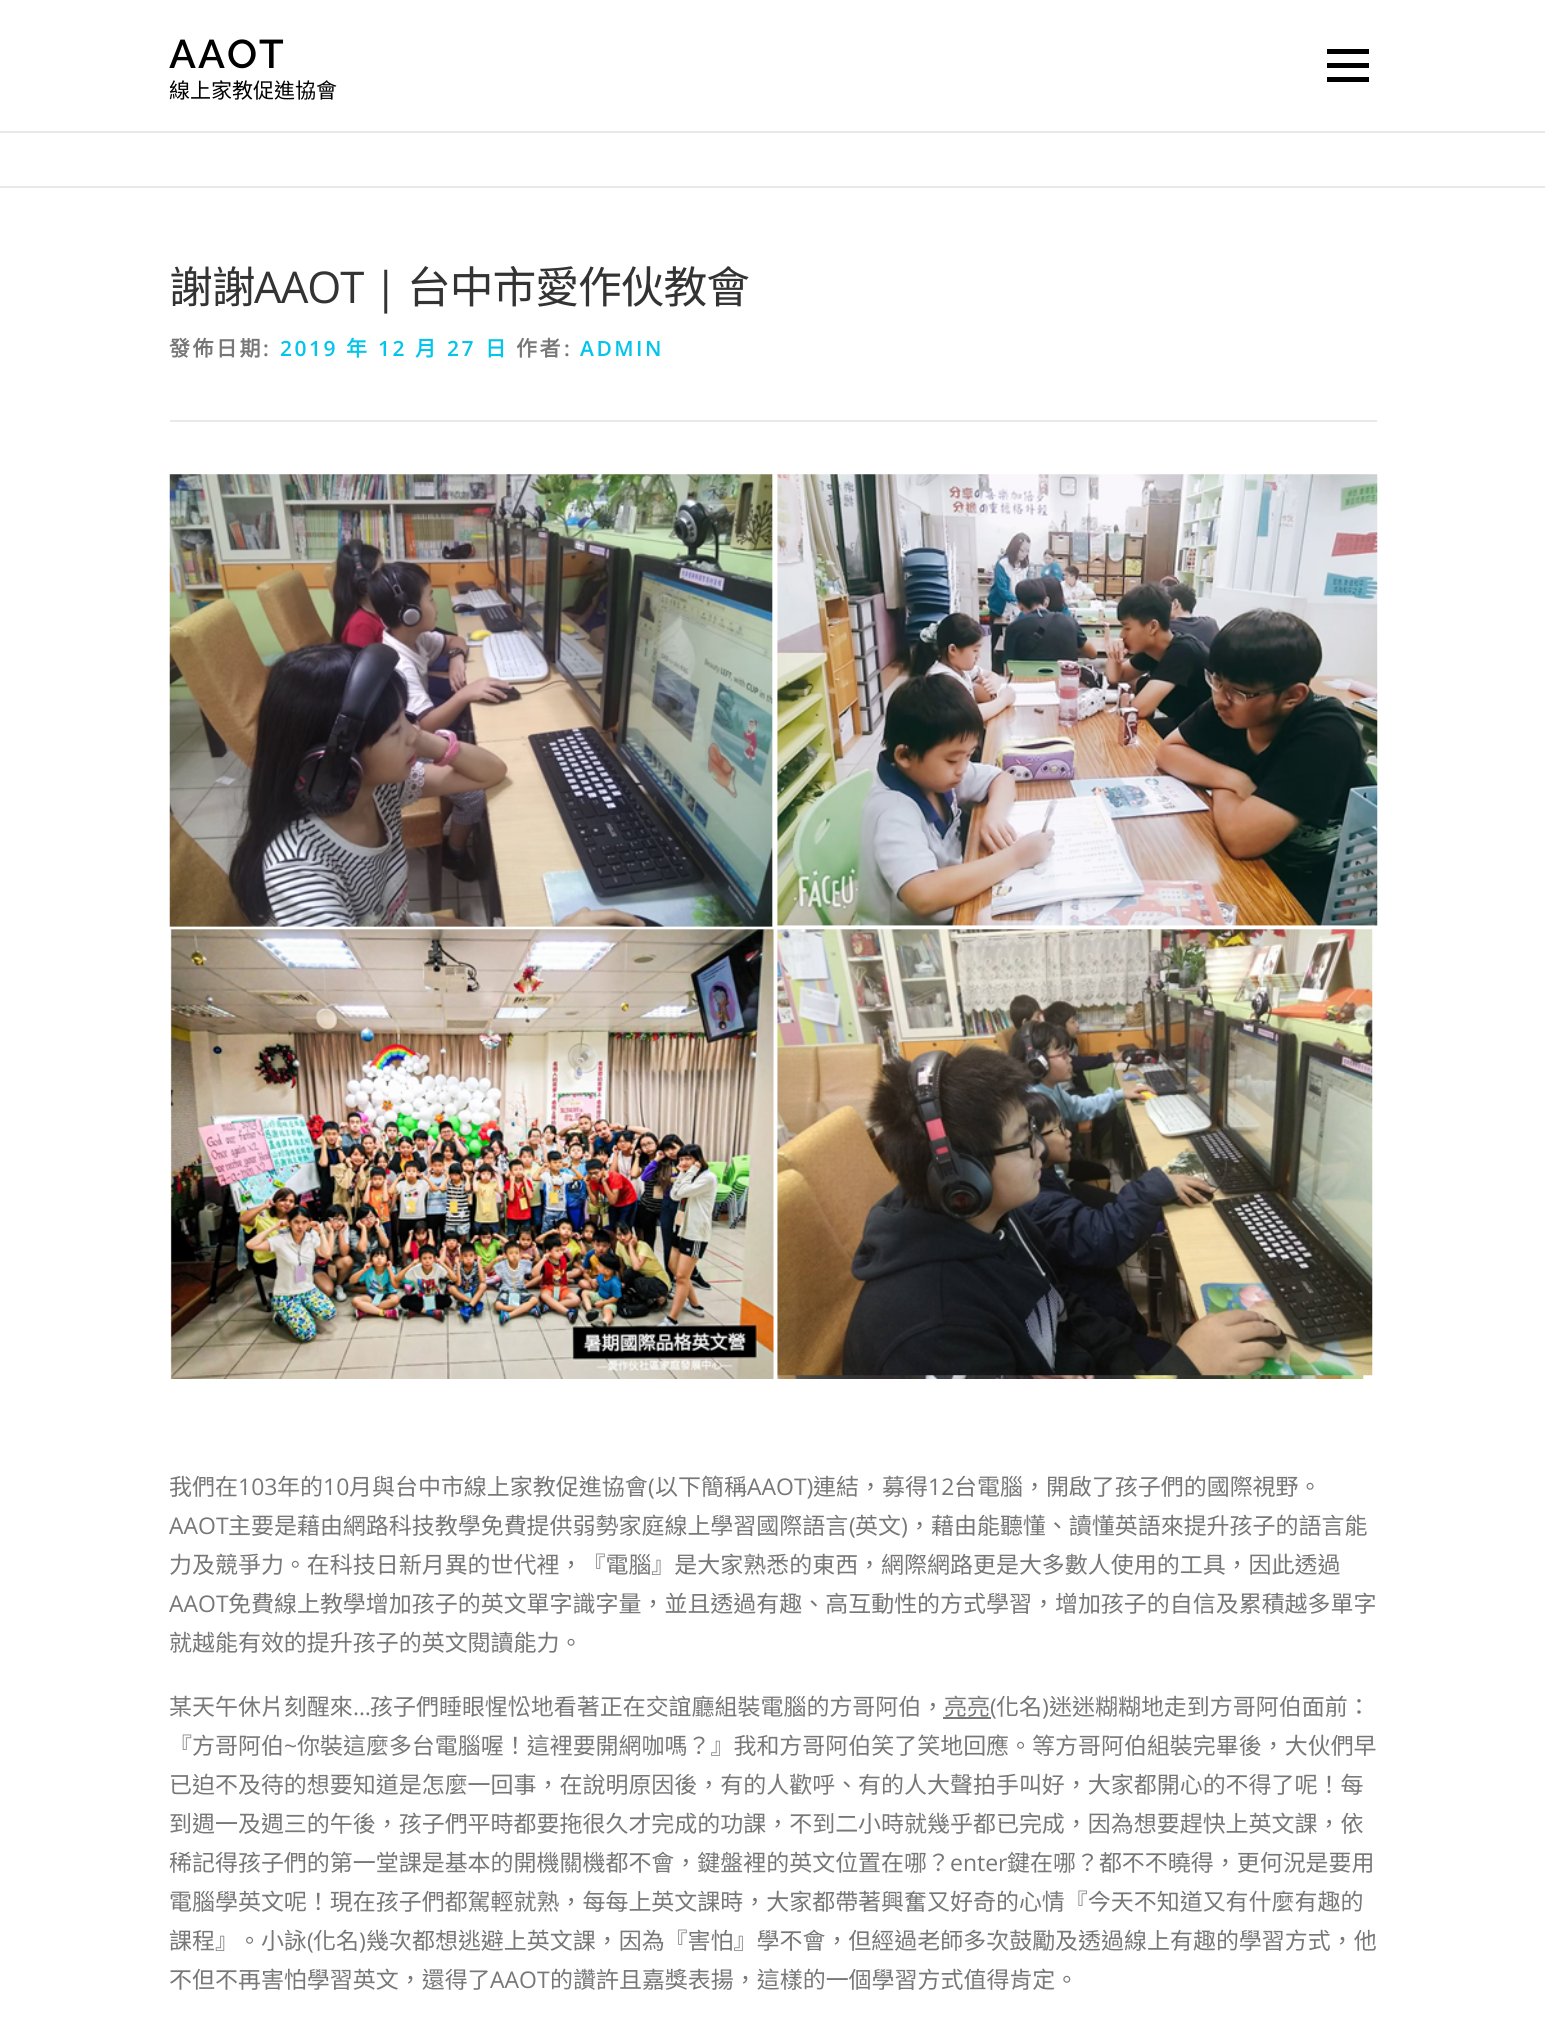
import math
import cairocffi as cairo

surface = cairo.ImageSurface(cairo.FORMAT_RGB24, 1545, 2041)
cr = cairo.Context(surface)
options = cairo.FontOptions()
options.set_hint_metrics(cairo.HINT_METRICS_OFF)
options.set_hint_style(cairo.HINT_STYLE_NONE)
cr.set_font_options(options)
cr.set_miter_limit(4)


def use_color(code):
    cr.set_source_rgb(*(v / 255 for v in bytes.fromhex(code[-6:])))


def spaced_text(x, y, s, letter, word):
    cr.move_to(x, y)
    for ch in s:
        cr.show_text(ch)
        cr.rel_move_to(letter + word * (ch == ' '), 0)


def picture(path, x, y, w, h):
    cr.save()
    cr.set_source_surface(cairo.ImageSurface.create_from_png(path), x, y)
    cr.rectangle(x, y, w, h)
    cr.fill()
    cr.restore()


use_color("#ffffff")
cr.paint()
cr.select_font_face("Raleway SemiBold")
cr.set_font_size(40)
use_color("#000000")
spaced_text(169, 68, "AAOT", 2, 0)
cr.select_font_face("Noto Sans CJK TC")
cr.set_font_size(21)
cr.move_to(169, 98)
cr.show_text("線上家教促進協會")
cr.rectangle(1327, 63, 42, 5)
cr.fill()
cr.rectangle(1327, 49, 42, 5)
cr.fill()
cr.rectangle(1327, 77, 42, 5)
cr.fill()
use_color("#e9e9e9")
cr.rectangle(0, 131, 1545, 2)
cr.fill()
cr.rectangle(0, 186, 1545, 2)
cr.fill()
cr.set_font_size(43.75)
use_color("#333333")
spaced_text(169, 303, "謝謝", -1, 0)
cr.select_font_face("Open Sans")
spaced_text(254, 303, "AAOT |", -1, 0)
cr.select_font_face("Noto Sans CJK TC")
spaced_text(407, 303, "台中市愛作伙教會", -1, 0)
use_color("#e9e9e9")
cr.rectangle(170, 420, 1207, 2)
cr.fill()
cr.select_font_face("Noto Sans CJK TC", cairo.FONT_SLANT_NORMAL, cairo.FONT_WEIGHT_BOLD)
cr.set_font_size(21)
use_color("#777777")
spaced_text(169, 356, "發佈日期", 2.5, 0)
cr.select_font_face("Open Sans SemiBold")
spaced_text(263, 356, ":", 2.5, 0)
use_color("#03c4eb")
spaced_text(280, 356, "2019", 2.5, 0)
cr.select_font_face("Noto Sans CJK TC", cairo.FONT_SLANT_NORMAL, cairo.FONT_WEIGHT_BOLD)
spaced_text(346, 356, "年", 2.5, 0)
cr.select_font_face("Open Sans SemiBold")
spaced_text(378, 356, "12", 2.5, 0)
cr.select_font_face("Noto Sans CJK TC", cairo.FONT_SLANT_NORMAL, cairo.FONT_WEIGHT_BOLD)
spaced_text(415, 356, "月", 2.5, 0)
cr.select_font_face("Open Sans SemiBold")
spaced_text(447, 356, "27", 2.5, 0)
cr.select_font_face("Noto Sans CJK TC", cairo.FONT_SLANT_NORMAL, cairo.FONT_WEIGHT_BOLD)
spaced_text(485, 356, "日", 2.5, 0)
use_color("#777777")
spaced_text(516, 356, "作者", 2.5, 0)
cr.select_font_face("Open Sans SemiBold")
spaced_text(564, 356, ":", 2.5, 0)
use_color("#03c4eb")
spaced_text(580, 356, "ADMIN", 2.5, 0)
picture("img1.png", 169, 474, 1209, 905)
cr.select_font_face("Noto Sans CJK TC")
cr.set_font_size(22.97)
use_color("#777777")
cr.move_to(169, 1495)
cr.show_text("我們在")
cr.select_font_face("Open Sans")
cr.move_to(238, 1495)
cr.show_text("103")
cr.select_font_face("Noto Sans CJK TC")
cr.move_to(277, 1495)
cr.show_text("年的")
cr.select_font_face("Open Sans")
cr.move_to(323, 1495)
cr.show_text("10")
cr.select_font_face("Noto Sans CJK TC")
cr.move_to(349, 1495)
cr.show_text("月與台中市線上家教促進協會")
cr.select_font_face("Open Sans")
cr.move_to(648, 1495)
cr.show_text("(")
cr.select_font_face("Noto Sans CJK TC")
cr.move_to(655, 1495)
cr.show_text("以下簡稱")
cr.select_font_face("Open Sans")
cr.move_to(747, 1495)
cr.show_text("AAOT)")
cr.select_font_face("Noto Sans CJK TC")
cr.move_to(813, 1495)
cr.show_text("連結，募得")
cr.select_font_face("Open Sans")
cr.move_to(928, 1495)
cr.show_text("12")
cr.select_font_face("Noto Sans CJK TC")
cr.move_to(954, 1495)
cr.show_text("台電腦，開啟了孩子們的國際視野。")
cr.select_font_face("Open Sans")
cr.move_to(169, 1534)
cr.show_text("AAOT")
cr.select_font_face("Noto Sans CJK TC")
cr.move_to(228, 1534)
cr.show_text("主要是藉由網路科技教學免費提供弱勢家庭線上學習國際語言")
cr.select_font_face("Open Sans")
cr.move_to(849, 1534)
cr.show_text("(")
cr.select_font_face("Noto Sans CJK TC")
cr.move_to(855, 1534)
cr.show_text("英文")
cr.select_font_face("Open Sans")
cr.move_to(901, 1534)
cr.show_text(")")
cr.select_font_face("Noto Sans CJK TC")
cr.move_to(908, 1534)
cr.show_text("，藉由能聽懂、讀懂英語來提升孩子的語言能")
cr.move_to(169, 1573)
cr.show_text("力及競爭力。在科技日新月異的世代裡，『電腦』是大家熟悉的東西，網際網路更是大多數人使用的工具，因此透過")
cr.select_font_face("Open Sans")
cr.move_to(169, 1612)
cr.show_text("AAOT")
cr.select_font_face("Noto Sans CJK TC")
cr.move_to(228, 1612)
cr.show_text("免費線上教學增加孩子的英文單字識字量，並且透過有趣、高互動性的方式學習，增加孩子的自信及累積越多單字")
cr.move_to(169, 1651)
cr.show_text("就越能有效的提升孩子的英文閱讀能力。")
cr.move_to(169, 1715)
cr.show_text("某天午休片刻醒來")
cr.select_font_face("Open Sans")
cr.move_to(353, 1715)
cr.show_text("…")
cr.select_font_face("Noto Sans CJK TC")
cr.move_to(370, 1715)
cr.show_text("孩子們睡眼惺忪地看著正在交誼廳組裝電腦的方哥阿伯，")
cr.move_to(944, 1715)
cr.show_text("亮亮")
cr.rectangle(943, 1717, 48, 2)
cr.fill()
cr.select_font_face("Open Sans")
cr.move_to(990, 1715)
cr.show_text("(")
cr.select_font_face("Noto Sans CJK TC")
cr.move_to(996, 1715)
cr.show_text("化名")
cr.select_font_face("Open Sans")
cr.move_to(1042, 1715)
cr.show_text(")")
cr.select_font_face("Noto Sans CJK TC")
cr.move_to(1049, 1715)
cr.show_text("迷迷糊糊地走到方哥阿伯面前：")
cr.move_to(169, 1754)
cr.show_text("『方哥阿伯")
cr.select_font_face("Open Sans")
cr.move_to(284, 1754)
cr.show_text("~")
cr.select_font_face("Noto Sans CJK TC")
cr.move_to(297, 1754)
cr.show_text("你裝這麼多台電腦喔！這裡要開網咖嗎？』我和方哥阿伯笑了笑地回應。等方哥阿伯組裝完畢後，大伙們早")
cr.move_to(169, 1793)
cr.show_text("已迫不及待的想要知道是怎麼一回事，在說明原因後，有的人歡呼、有的人大聲拍手叫好，大家都開心的不得了呢！每")
cr.move_to(169, 1832)
cr.show_text("到週一及週三的午後，孩子們平時都要拖很久才完成的功課，不到二小時就幾乎都已完成，因為想要趕快上英文課，依")
cr.move_to(169, 1871)
cr.show_text("稀記得孩子們的第一堂課是基本的開機關機都不會，鍵盤裡的英文位置在哪？")
cr.select_font_face("Open Sans")
cr.move_to(950, 1871)
cr.show_text("enter")
cr.select_font_face("Noto Sans CJK TC")
cr.move_to(1007, 1871)
cr.show_text("鍵在哪？都不不曉得，更何況是要用")
cr.move_to(169, 1910)
cr.show_text("電腦學英文呢！現在孩子們都駕輕就熟，每每上英文課時，大家都帶著興奮又好奇的心情『今天不知道又有什麼有趣的")
cr.move_to(169, 1949)
cr.show_text("課程』。小詠")
cr.select_font_face("Open Sans")
cr.move_to(307, 1949)
cr.show_text("(")
cr.select_font_face("Noto Sans CJK TC")
cr.move_to(313, 1949)
cr.show_text("化名")
cr.select_font_face("Open Sans")
cr.move_to(359, 1949)
cr.show_text(")")
cr.select_font_face("Noto Sans CJK TC")
cr.move_to(366, 1949)
cr.show_text("幾次都想逃避上英文課，因為『害怕』學不會，但經過老師多次鼓勵及透過線上有趣的學習方式，他")
cr.move_to(169, 1988)
cr.show_text("不但不再害怕學習英文，還得了")
cr.select_font_face("Open Sans")
cr.move_to(490, 1988)
cr.show_text("AAOT")
cr.select_font_face("Noto Sans CJK TC")
cr.move_to(550, 1988)
cr.show_text("的讚許且嘉獎表揚，這樣的一個學習方式值得肯定。")
surface.write_to_png("result.png")
